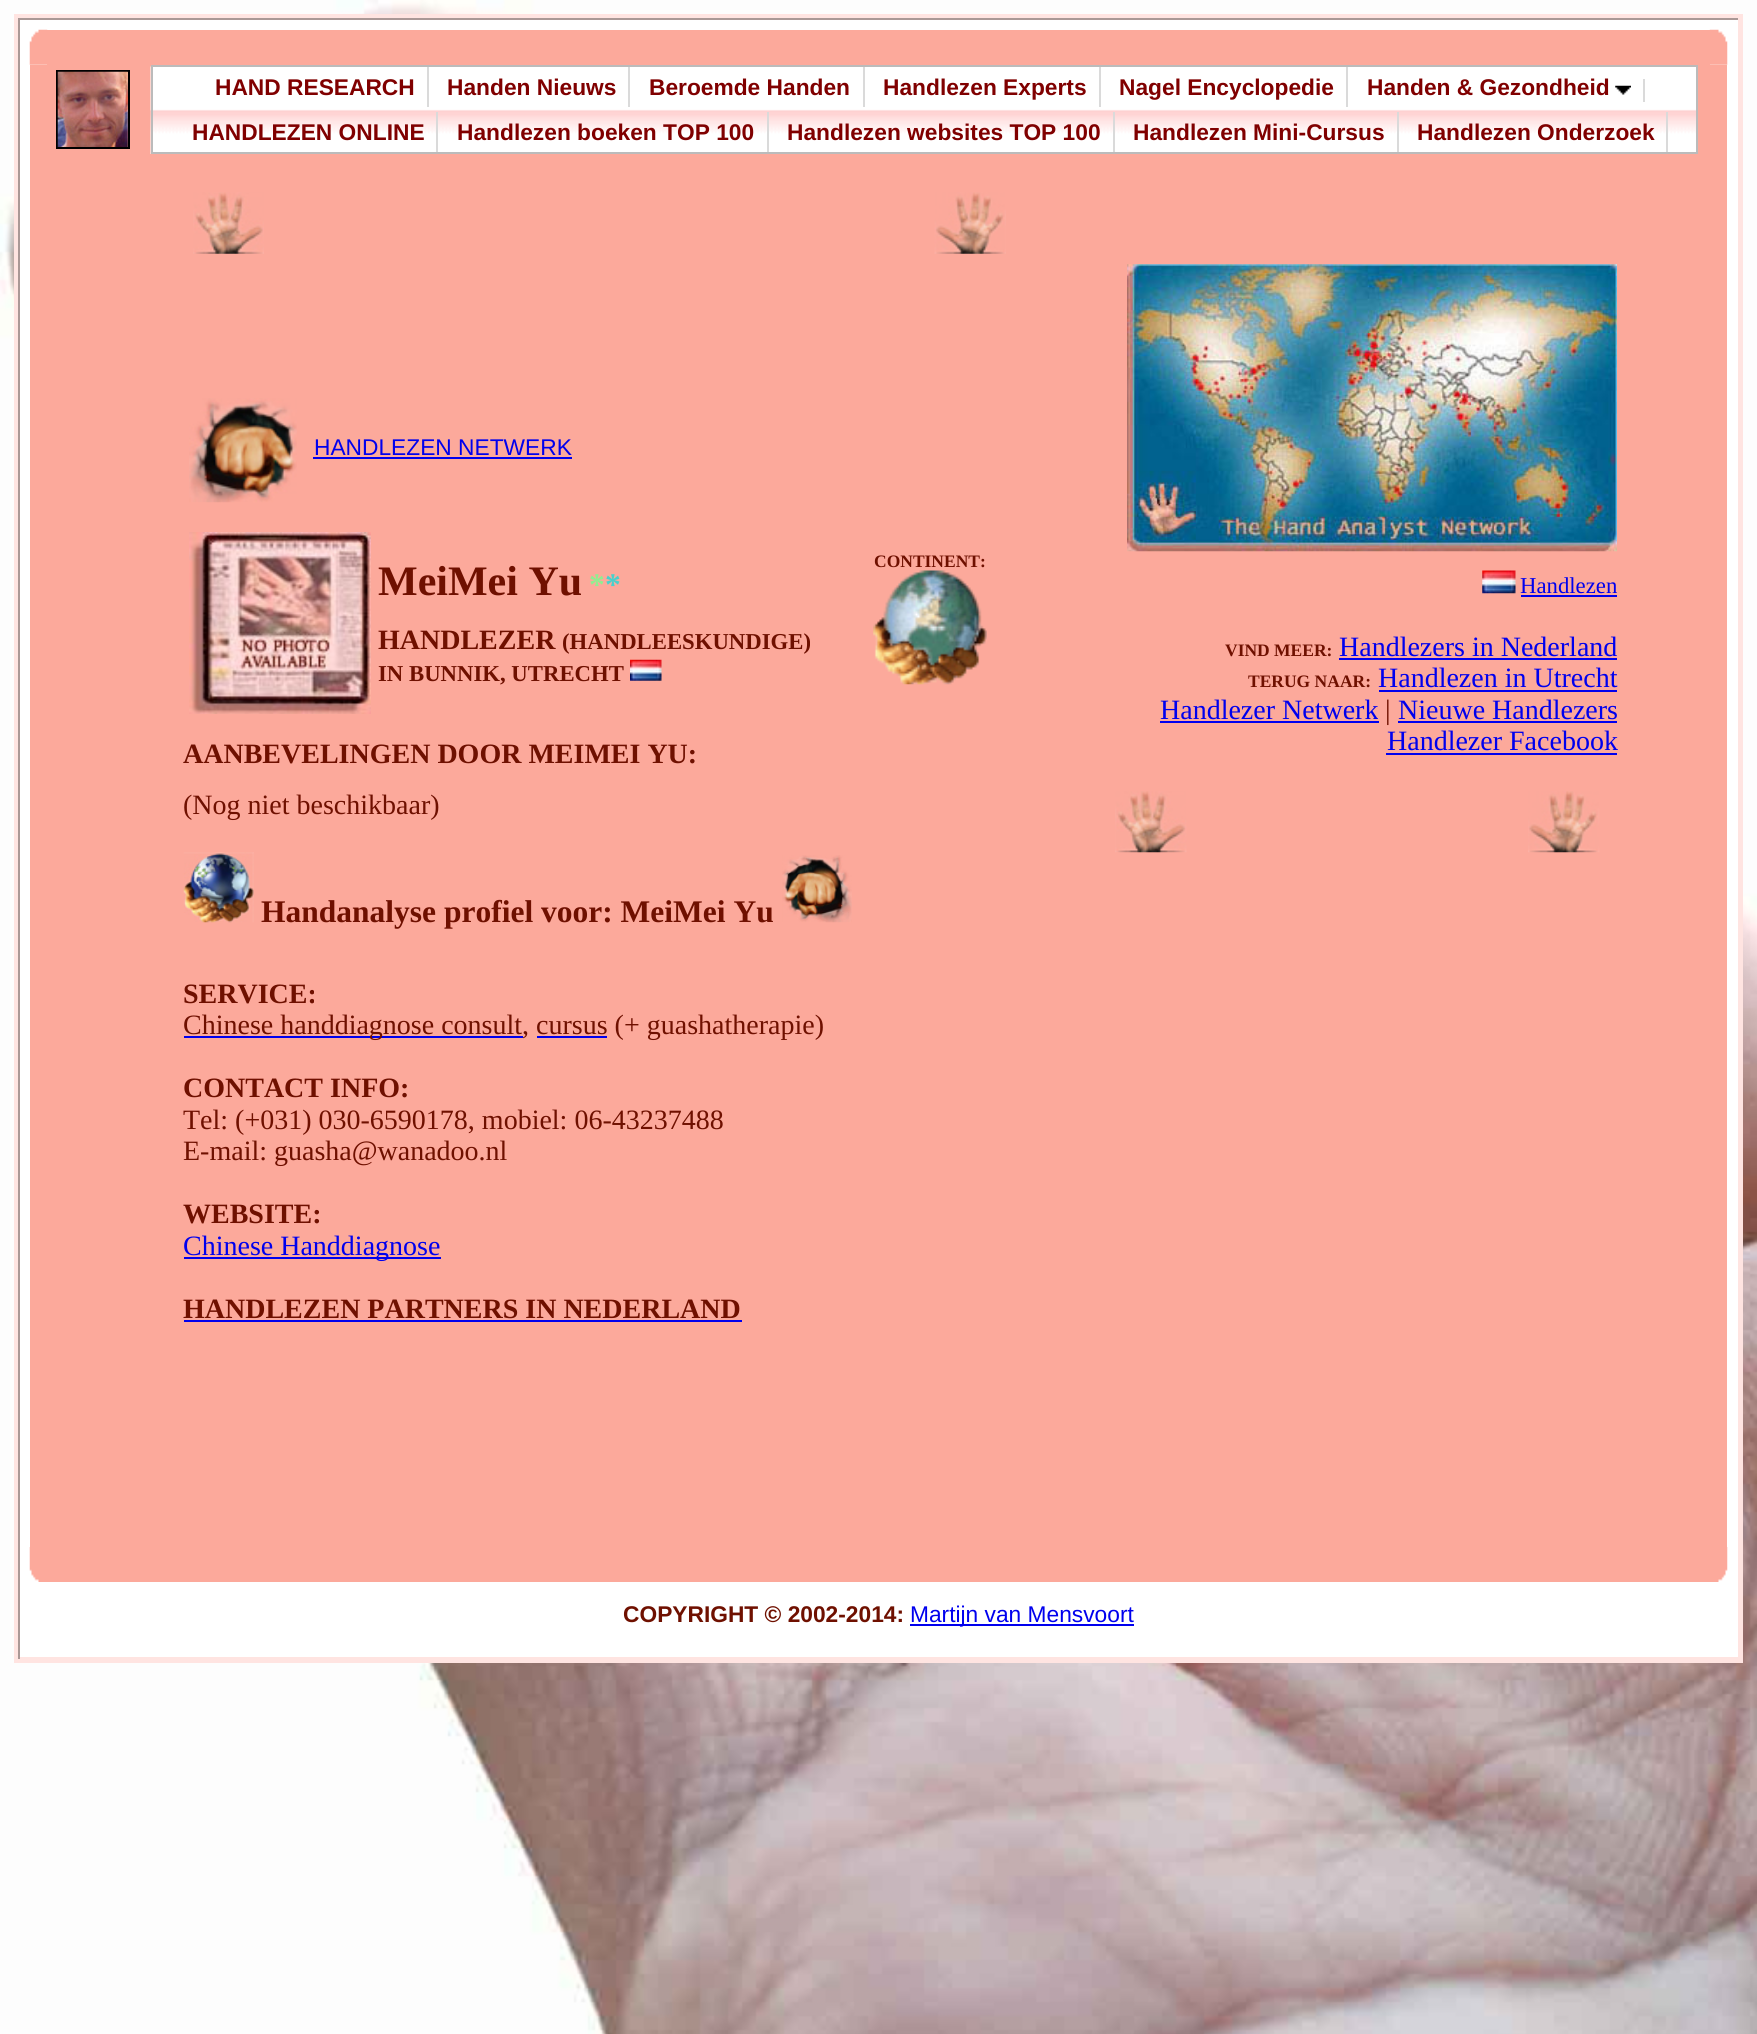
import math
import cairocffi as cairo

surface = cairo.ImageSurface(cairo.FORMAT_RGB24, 1757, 2034)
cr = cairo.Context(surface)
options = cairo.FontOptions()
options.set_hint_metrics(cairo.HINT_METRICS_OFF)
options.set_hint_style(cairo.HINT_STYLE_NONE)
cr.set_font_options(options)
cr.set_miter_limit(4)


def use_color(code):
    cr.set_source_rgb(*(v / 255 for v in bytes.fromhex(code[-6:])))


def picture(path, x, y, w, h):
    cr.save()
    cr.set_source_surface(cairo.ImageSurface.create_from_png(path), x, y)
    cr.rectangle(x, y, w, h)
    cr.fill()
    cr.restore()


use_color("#ffffff")
cr.paint()
picture("img1.png", 0, 0, 1757, 2034)
cr.rectangle(16, 16, 1725, 1645)
use_color("#ffe4e1")
cr.set_line_width(4)
cr.stroke()
use_color("#ffffff")
cr.rectangle(20, 20, 1718, 1637)
cr.fill()
use_color("#aa9896")
cr.rectangle(18, 18, 1722, 2)
cr.fill()
use_color("#ffe4e1")
cr.rectangle(1738, 18, 2, 1641)
cr.fill()
cr.rectangle(18, 1657, 1722, 2)
cr.fill()
use_color("#aa9896")
cr.rectangle(18, 18, 2, 1641)
cr.fill()
use_color("#fca99b")
cr.rectangle(30, 30, 1697, 1517)
cr.fill()
use_color("#ffffff")
cr.rectangle(30, 30, 17, 35)
cr.fill()
picture("img2.png", 29, 29, 19, 36)
cr.rectangle(1710, 30, 17, 35)
cr.fill()
picture("img3.png", 1709, 29, 19, 36)
cr.rectangle(57, 71, 72, 77)
use_color("#000000")
cr.set_line_width(2)
cr.stroke()
picture("img4.png", 57, 71, 71, 76)
picture("img5.png", 150, 66, 1546, 88)
cr.rectangle(152, 66, 1545, 87)
use_color("#bbbbbb")
cr.stroke()
cr.select_font_face("Liberation Sans", cairo.FONT_SLANT_NORMAL, cairo.FONT_WEIGHT_BOLD)
cr.set_font_size(22.75)
use_color("#800000")
cr.move_to(215, 95)
cr.show_text("HAND RESEARCH")
use_color("#dadada")
cr.rectangle(427, 67, 2, 40)
cr.fill()
use_color("#800000")
cr.move_to(447, 95)
cr.show_text("Handen Nieuws")
use_color("#dadada")
cr.rectangle(628, 67, 2, 40)
cr.fill()
use_color("#800000")
cr.move_to(649, 95)
cr.show_text("Beroemde Handen")
use_color("#dadada")
cr.rectangle(863, 67, 2, 40)
cr.fill()
use_color("#800000")
cr.move_to(883, 95)
cr.show_text("Handlezen Experts")
use_color("#dadada")
cr.rectangle(1099, 67, 2, 40)
cr.fill()
use_color("#800000")
cr.move_to(1119, 95)
cr.show_text("Nagel Encyclopedie")
use_color("#dadada")
cr.rectangle(1346, 67, 2, 40)
cr.fill()
use_color("#800000")
cr.move_to(1367, 95)
cr.show_text("Handen & Gezondheid")
use_color("#dadada")
cr.rectangle(1643, 79, 2, 23)
cr.fill()
picture("img6.png", 1615, 85, 16, 10)
use_color("#800000")
cr.move_to(192, 140)
cr.show_text("HANDLEZEN ONLINE")
use_color("#dadada")
cr.rectangle(436, 112, 2, 40)
cr.fill()
use_color("#800000")
cr.move_to(457, 140)
cr.show_text("Handlezen boeken TOP 100")
use_color("#dadada")
cr.rectangle(767, 112, 2, 40)
cr.fill()
use_color("#800000")
cr.move_to(787, 140)
cr.show_text("Handlezen websites TOP 100")
use_color("#dadada")
cr.rectangle(1113, 112, 2, 40)
cr.fill()
use_color("#800000")
cr.move_to(1133, 140)
cr.show_text("Handlezen Mini-Cursus")
use_color("#dadada")
cr.rectangle(1397, 112, 2, 40)
cr.fill()
use_color("#800000")
cr.move_to(1417, 140)
cr.show_text("Handlezen Onderzoek")
use_color("#dadada")
cr.rectangle(1666, 112, 2, 40)
cr.fill()
picture("img7.png", 193, 192, 71, 62)
picture("img8.png", 934, 192, 72, 62)
picture("img9.png", 189, 398, 108, 105)
cr.select_font_face("Liberation Sans")
use_color("#0000ee")
cr.move_to(314, 455)
cr.show_text("HANDLEZEN NETWERK")
cr.rectangle(313, 457, 259, 2)
cr.fill()
picture("img10.png", 189, 532, 182, 182)
cr.select_font_face("Liberation Serif", cairo.FONT_SLANT_NORMAL, cairo.FONT_WEIGHT_BOLD)
cr.set_font_size(17.5)
use_color("#6f1000")
cr.move_to(874, 567)
cr.show_text("CONTINENT:")
picture("img11.png", 873, 570, 114, 115)
cr.set_font_size(42)
cr.move_to(378, 595)
cr.show_text("MeiMei Yu")
cr.set_font_size(31.5)
use_color("#90ee90")
cr.move_to(589, 595)
cr.show_text("*")
use_color("#48d1cc")
cr.move_to(605, 595)
cr.show_text("*")
cr.set_font_size(28)
use_color("#6f1000")
cr.move_to(378, 649)
cr.show_text("HANDLEZER")
cr.set_font_size(22.75)
cr.move_to(562, 649)
cr.show_text("(HANDLEESKUNDIGE)")
cr.move_to(378, 681)
cr.show_text("IN BUNNIK, UTRECHT")
picture("img12.png", 630, 659, 32, 22)
cr.set_font_size(28)
cr.move_to(183, 763)
cr.show_text("AANBEVELINGEN DOOR MEIMEI YU:")
cr.select_font_face("Liberation Serif")
cr.move_to(183, 814)
cr.show_text("(Nog niet beschikbaar)")
picture("img13.png", 183, 852, 71, 71)
cr.select_font_face("Liberation Serif", cairo.FONT_SLANT_NORMAL, cairo.FONT_WEIGHT_BOLD)
cr.set_font_size(31.5)
cr.move_to(261, 922)
cr.show_text("Handanalyse profiel voor: MeiMei Yu")
picture("img14.png", 782, 855, 70, 68)
cr.set_font_size(28)
cr.move_to(183, 1003)
cr.show_text("SERVICE:")
use_color("#0000ee")
cr.rectangle(184, 1036, 339, 2)
cr.fill()
cr.select_font_face("Liberation Serif")
use_color("#6f1000")
cr.move_to(183, 1034)
cr.show_text("Chinese handdiagnose consult, cursus (+ guashatherapie)")
use_color("#0000ee")
cr.rectangle(537, 1036, 70, 2)
cr.fill()
cr.select_font_face("Liberation Serif", cairo.FONT_SLANT_NORMAL, cairo.FONT_WEIGHT_BOLD)
use_color("#6f1000")
cr.move_to(183, 1097)
cr.show_text("CONTACT INFO:")
cr.select_font_face("Liberation Serif")
cr.move_to(183, 1129)
cr.show_text("Tel: (+031) 030-6590178, mobiel: 06-43237488")
cr.move_to(183, 1160)
cr.show_text("E-mail: guasha@wanadoo.nl")
cr.select_font_face("Liberation Serif", cairo.FONT_SLANT_NORMAL, cairo.FONT_WEIGHT_BOLD)
cr.move_to(183, 1223)
cr.show_text("WEBSITE:")
use_color("#0000ee")
cr.rectangle(184, 1257, 257, 2)
cr.fill()
cr.select_font_face("Liberation Serif")
cr.move_to(183, 1255)
cr.show_text("Chinese Handdiagnose")
cr.select_font_face("Liberation Serif", cairo.FONT_SLANT_NORMAL, cairo.FONT_WEIGHT_BOLD)
use_color("#6f1000")
cr.move_to(183, 1318)
cr.show_text("HANDLEZEN PARTNERS IN NEDERLAND")
use_color("#0000ee")
cr.rectangle(184, 1320, 558, 2)
cr.fill()
picture("img15.png", 1127, 264, 490, 288)
picture("img16.png", 1482, 570, 34, 24)
cr.select_font_face("Liberation Serif")
cr.set_font_size(22.75)
cr.move_to(1520, 593)
cr.show_text("Handlezen")
cr.rectangle(1521, 595, 96, 2)
cr.fill()
cr.select_font_face("Liberation Serif", cairo.FONT_SLANT_NORMAL, cairo.FONT_WEIGHT_BOLD)
cr.set_font_size(17.5)
use_color("#6f1000")
cr.move_to(1225, 656)
cr.show_text("VIND MEER:")
use_color("#0000ee")
cr.rectangle(1339, 658, 278, 2)
cr.fill()
cr.select_font_face("Liberation Serif")
cr.set_font_size(28)
cr.move_to(1339, 656)
cr.show_text("Handlezers in Nederland")
cr.select_font_face("Liberation Serif", cairo.FONT_SLANT_NORMAL, cairo.FONT_WEIGHT_BOLD)
cr.set_font_size(17.5)
use_color("#6f1000")
cr.move_to(1248, 687)
cr.show_text("TERUG NAAR:")
cr.select_font_face("Liberation Serif")
cr.set_font_size(28)
use_color("#0000ee")
cr.move_to(1378, 687)
cr.show_text("Handlezen in Utrecht")
cr.rectangle(1379, 690, 238, 2)
cr.fill()
cr.move_to(1160, 719)
cr.show_text("Handlezer Netwerk")
cr.rectangle(1160, 721, 219, 2)
cr.fill()
use_color("#6f1000")
cr.move_to(1385, 719)
cr.show_text("|")
use_color("#0000ee")
cr.move_to(1398, 719)
cr.show_text("Nieuwe Handlezers")
cr.rectangle(1398, 721, 219, 2)
cr.fill()
cr.move_to(1387, 750)
cr.show_text("Handlezer Facebook")
cr.rectangle(1386, 753, 231, 2)
cr.fill()
picture("img17.png", 1115, 791, 72, 62)
picture("img18.png", 1528, 791, 72, 62)
picture("img19.png", 29, 1547, 18, 35)
use_color("#fca99b")
cr.rectangle(47, 1547, 1663, 35)
cr.fill()
picture("img20.png", 1710, 1547, 18, 35)
cr.select_font_face("Liberation Sans", cairo.FONT_SLANT_NORMAL, cairo.FONT_WEIGHT_BOLD)
cr.set_font_size(22.75)
use_color("#6f1000")
cr.move_to(623, 1622)
cr.show_text("COPYRIGHT © 2002-2014:")
use_color("#0000ee")
cr.rectangle(910, 1624, 224, 2)
cr.fill()
cr.select_font_face("Liberation Sans")
cr.move_to(910, 1622)
cr.show_text("Martijn van Mensvoort")
surface.write_to_png("result.png")
